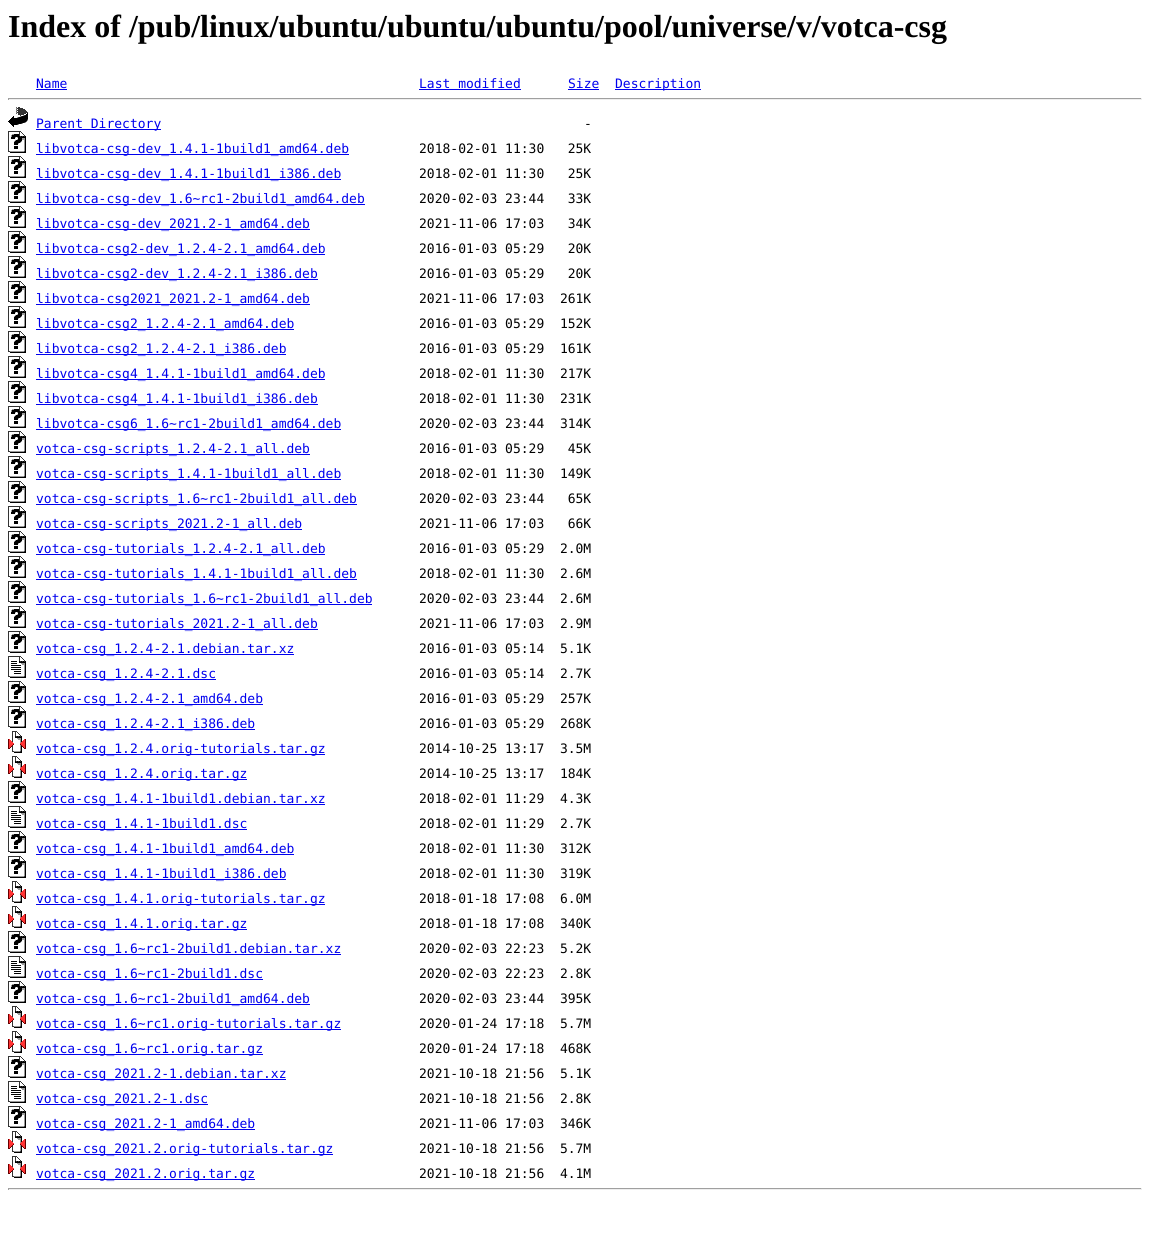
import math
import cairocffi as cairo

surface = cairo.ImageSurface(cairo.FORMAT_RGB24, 1150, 1257)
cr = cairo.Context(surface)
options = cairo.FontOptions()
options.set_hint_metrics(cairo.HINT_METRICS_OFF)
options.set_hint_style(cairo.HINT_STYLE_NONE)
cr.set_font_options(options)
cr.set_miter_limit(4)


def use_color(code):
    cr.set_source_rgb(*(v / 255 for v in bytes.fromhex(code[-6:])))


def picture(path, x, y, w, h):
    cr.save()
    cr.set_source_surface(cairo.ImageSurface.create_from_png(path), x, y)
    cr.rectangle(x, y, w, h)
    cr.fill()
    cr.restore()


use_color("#ffffff")
cr.paint()
cr.select_font_face("Liberation Serif", cairo.FONT_SLANT_NORMAL, cairo.FONT_WEIGHT_BOLD)
cr.set_font_size(32)
use_color("#000000")
cr.move_to(8, 37)
cr.show_text("Index of /pub/linux/ubuntu/ubuntu/ubuntu/pool/universe/v/votca-csg")
cr.select_font_face("DejaVu Sans Mono")
cr.set_font_size(13)
use_color("#0000ee")
cr.move_to(36, 88)
cr.show_text("Name")
cr.rectangle(36, 89, 31, 1)
cr.fill()
cr.move_to(419, 88)
cr.show_text("Last modified")
cr.rectangle(419, 89, 102, 1)
cr.fill()
cr.move_to(568, 88)
cr.show_text("Size")
cr.rectangle(568, 89, 31, 1)
cr.fill()
cr.rectangle(615, 89, 86, 1)
cr.fill()
cr.move_to(615, 88)
cr.show_text("Description")
use_color("#9f9f9f")
cr.rectangle(8, 98, 1134, 1)
cr.fill()
use_color("#eeeeee")
cr.rectangle(1141, 98, 1, 2)
cr.fill()
cr.rectangle(8, 99, 1134, 1)
cr.fill()
use_color("#9f9f9f")
cr.rectangle(8, 98, 1, 2)
cr.fill()
picture("img1.png", 8, 107, 20, 20)
use_color("#0000ee")
cr.rectangle(36, 129, 125, 1)
cr.fill()
cr.move_to(36, 128)
cr.show_text("Parent Directory")
use_color("#000000")
cr.move_to(584, 128)
cr.show_text("-")
picture("img2.png", 8, 131, 18, 22)
use_color("#0000ee")
cr.rectangle(36, 154, 313, 1)
cr.fill()
cr.move_to(36, 153)
cr.show_text("libvotca-csg-dev_1.4.1-1build1_amd64.deb")
use_color("#000000")
cr.move_to(419, 153)
cr.show_text("2018-02-01 11:30   25K")
picture("img2.png", 8, 156, 18, 22)
use_color("#0000ee")
cr.rectangle(36, 179, 305, 1)
cr.fill()
cr.move_to(36, 178)
cr.show_text("libvotca-csg-dev_1.4.1-1build1_i386.deb")
use_color("#000000")
cr.move_to(419, 178)
cr.show_text("2018-02-01 11:30   25K")
picture("img2.png", 8, 181, 18, 22)
use_color("#0000ee")
cr.rectangle(36, 204, 329, 1)
cr.fill()
cr.move_to(36, 203)
cr.show_text("libvotca-csg-dev_1.6~rc1-2build1_amd64.deb")
use_color("#000000")
cr.move_to(419, 203)
cr.show_text("2020-02-03 23:44   33K")
picture("img2.png", 8, 206, 18, 22)
use_color("#0000ee")
cr.rectangle(36, 229, 274, 1)
cr.fill()
cr.move_to(36, 228)
cr.show_text("libvotca-csg-dev_2021.2-1_amd64.deb")
use_color("#000000")
cr.move_to(419, 228)
cr.show_text("2021-11-06 17:03   34K")
picture("img2.png", 8, 231, 18, 22)
use_color("#0000ee")
cr.rectangle(36, 254, 289, 1)
cr.fill()
cr.move_to(36, 253)
cr.show_text("libvotca-csg2-dev_1.2.4-2.1_amd64.deb")
use_color("#000000")
cr.move_to(419, 253)
cr.show_text("2016-01-03 05:29   20K")
picture("img2.png", 8, 256, 18, 22)
use_color("#0000ee")
cr.rectangle(36, 279, 282, 1)
cr.fill()
cr.move_to(36, 278)
cr.show_text("libvotca-csg2-dev_1.2.4-2.1_i386.deb")
use_color("#000000")
cr.move_to(419, 278)
cr.show_text("2016-01-03 05:29   20K")
picture("img2.png", 8, 281, 18, 22)
use_color("#0000ee")
cr.rectangle(36, 304, 274, 1)
cr.fill()
cr.move_to(36, 303)
cr.show_text("libvotca-csg2021_2021.2-1_amd64.deb")
use_color("#000000")
cr.move_to(419, 303)
cr.show_text("2021-11-06 17:03  261K")
picture("img2.png", 8, 306, 18, 22)
use_color("#0000ee")
cr.rectangle(36, 329, 258, 1)
cr.fill()
cr.move_to(36, 328)
cr.show_text("libvotca-csg2_1.2.4-2.1_amd64.deb")
use_color("#000000")
cr.move_to(419, 328)
cr.show_text("2016-01-03 05:29  152K")
picture("img2.png", 8, 331, 18, 22)
use_color("#0000ee")
cr.rectangle(36, 354, 250, 1)
cr.fill()
cr.move_to(36, 353)
cr.show_text("libvotca-csg2_1.2.4-2.1_i386.deb")
use_color("#000000")
cr.move_to(419, 353)
cr.show_text("2016-01-03 05:29  161K")
picture("img2.png", 8, 356, 18, 22)
use_color("#0000ee")
cr.rectangle(36, 379, 289, 1)
cr.fill()
cr.move_to(36, 378)
cr.show_text("libvotca-csg4_1.4.1-1build1_amd64.deb")
use_color("#000000")
cr.move_to(419, 378)
cr.show_text("2018-02-01 11:30  217K")
picture("img2.png", 8, 381, 18, 22)
use_color("#0000ee")
cr.rectangle(36, 404, 282, 1)
cr.fill()
cr.move_to(36, 403)
cr.show_text("libvotca-csg4_1.4.1-1build1_i386.deb")
use_color("#000000")
cr.move_to(419, 403)
cr.show_text("2018-02-01 11:30  231K")
picture("img2.png", 8, 406, 18, 22)
use_color("#0000ee")
cr.rectangle(36, 429, 305, 1)
cr.fill()
cr.move_to(36, 428)
cr.show_text("libvotca-csg6_1.6~rc1-2build1_amd64.deb")
use_color("#000000")
cr.move_to(419, 428)
cr.show_text("2020-02-03 23:44  314K")
picture("img2.png", 8, 431, 18, 22)
use_color("#0000ee")
cr.rectangle(36, 454, 274, 1)
cr.fill()
cr.move_to(36, 453)
cr.show_text("votca-csg-scripts_1.2.4-2.1_all.deb")
use_color("#000000")
cr.move_to(419, 453)
cr.show_text("2016-01-03 05:29   45K")
picture("img2.png", 8, 456, 18, 22)
use_color("#0000ee")
cr.rectangle(36, 479, 305, 1)
cr.fill()
cr.move_to(36, 478)
cr.show_text("votca-csg-scripts_1.4.1-1build1_all.deb")
use_color("#000000")
cr.move_to(419, 478)
cr.show_text("2018-02-01 11:30  149K")
picture("img2.png", 8, 481, 18, 22)
use_color("#0000ee")
cr.rectangle(36, 504, 321, 1)
cr.fill()
cr.move_to(36, 503)
cr.show_text("votca-csg-scripts_1.6~rc1-2build1_all.deb")
use_color("#000000")
cr.move_to(419, 503)
cr.show_text("2020-02-03 23:44   65K")
picture("img2.png", 8, 506, 18, 22)
use_color("#0000ee")
cr.rectangle(36, 529, 266, 1)
cr.fill()
cr.move_to(36, 528)
cr.show_text("votca-csg-scripts_2021.2-1_all.deb")
use_color("#000000")
cr.move_to(419, 528)
cr.show_text("2021-11-06 17:03   66K")
picture("img2.png", 8, 531, 18, 22)
use_color("#0000ee")
cr.rectangle(36, 554, 289, 1)
cr.fill()
cr.move_to(36, 553)
cr.show_text("votca-csg-tutorials_1.2.4-2.1_all.deb")
use_color("#000000")
cr.move_to(419, 553)
cr.show_text("2016-01-03 05:29  2.0M")
picture("img2.png", 8, 556, 18, 22)
use_color("#0000ee")
cr.rectangle(36, 579, 321, 1)
cr.fill()
cr.move_to(36, 578)
cr.show_text("votca-csg-tutorials_1.4.1-1build1_all.deb")
use_color("#000000")
cr.move_to(419, 578)
cr.show_text("2018-02-01 11:30  2.6M")
picture("img2.png", 8, 581, 18, 22)
use_color("#0000ee")
cr.rectangle(36, 604, 336, 1)
cr.fill()
cr.move_to(36, 603)
cr.show_text("votca-csg-tutorials_1.6~rc1-2build1_all.deb")
use_color("#000000")
cr.move_to(419, 603)
cr.show_text("2020-02-03 23:44  2.6M")
picture("img2.png", 8, 606, 18, 22)
use_color("#0000ee")
cr.rectangle(36, 629, 282, 1)
cr.fill()
cr.move_to(36, 628)
cr.show_text("votca-csg-tutorials_2021.2-1_all.deb")
use_color("#000000")
cr.move_to(419, 628)
cr.show_text("2021-11-06 17:03  2.9M")
picture("img2.png", 8, 631, 18, 22)
use_color("#0000ee")
cr.rectangle(36, 654, 258, 1)
cr.fill()
cr.move_to(36, 653)
cr.show_text("votca-csg_1.2.4-2.1.debian.tar.xz")
use_color("#000000")
cr.move_to(419, 653)
cr.show_text("2016-01-03 05:14  5.1K")
picture("img3.png", 8, 656, 18, 22)
use_color("#0000ee")
cr.rectangle(36, 679, 180, 1)
cr.fill()
cr.move_to(36, 678)
cr.show_text("votca-csg_1.2.4-2.1.dsc")
use_color("#000000")
cr.move_to(419, 678)
cr.show_text("2016-01-03 05:14  2.7K")
picture("img2.png", 8, 681, 18, 22)
use_color("#0000ee")
cr.rectangle(36, 704, 227, 1)
cr.fill()
cr.move_to(36, 703)
cr.show_text("votca-csg_1.2.4-2.1_amd64.deb")
use_color("#000000")
cr.move_to(419, 703)
cr.show_text("2016-01-03 05:29  257K")
picture("img2.png", 8, 706, 18, 22)
use_color("#0000ee")
cr.rectangle(36, 729, 219, 1)
cr.fill()
cr.move_to(36, 728)
cr.show_text("votca-csg_1.2.4-2.1_i386.deb")
use_color("#000000")
cr.move_to(419, 728)
cr.show_text("2016-01-03 05:29  268K")
picture("img4.png", 8, 731, 18, 22)
use_color("#0000ee")
cr.rectangle(36, 754, 289, 1)
cr.fill()
cr.move_to(36, 753)
cr.show_text("votca-csg_1.2.4.orig-tutorials.tar.gz")
use_color("#000000")
cr.move_to(419, 753)
cr.show_text("2014-10-25 13:17  3.5M")
picture("img4.png", 8, 756, 18, 22)
use_color("#0000ee")
cr.rectangle(36, 779, 211, 1)
cr.fill()
cr.move_to(36, 778)
cr.show_text("votca-csg_1.2.4.orig.tar.gz")
use_color("#000000")
cr.move_to(419, 778)
cr.show_text("2014-10-25 13:17  184K")
picture("img2.png", 8, 781, 18, 22)
use_color("#0000ee")
cr.rectangle(36, 804, 289, 1)
cr.fill()
cr.move_to(36, 803)
cr.show_text("votca-csg_1.4.1-1build1.debian.tar.xz")
use_color("#000000")
cr.move_to(419, 803)
cr.show_text("2018-02-01 11:29  4.3K")
picture("img3.png", 8, 806, 18, 22)
use_color("#0000ee")
cr.rectangle(36, 829, 211, 1)
cr.fill()
cr.move_to(36, 828)
cr.show_text("votca-csg_1.4.1-1build1.dsc")
use_color("#000000")
cr.move_to(419, 828)
cr.show_text("2018-02-01 11:29  2.7K")
picture("img2.png", 8, 831, 18, 22)
use_color("#0000ee")
cr.rectangle(36, 854, 258, 1)
cr.fill()
cr.move_to(36, 853)
cr.show_text("votca-csg_1.4.1-1build1_amd64.deb")
use_color("#000000")
cr.move_to(419, 853)
cr.show_text("2018-02-01 11:30  312K")
picture("img2.png", 8, 856, 18, 22)
use_color("#0000ee")
cr.rectangle(36, 879, 250, 1)
cr.fill()
cr.move_to(36, 878)
cr.show_text("votca-csg_1.4.1-1build1_i386.deb")
use_color("#000000")
cr.move_to(419, 878)
cr.show_text("2018-02-01 11:30  319K")
picture("img4.png", 8, 881, 18, 22)
use_color("#0000ee")
cr.rectangle(36, 904, 289, 1)
cr.fill()
cr.move_to(36, 903)
cr.show_text("votca-csg_1.4.1.orig-tutorials.tar.gz")
use_color("#000000")
cr.move_to(419, 903)
cr.show_text("2018-01-18 17:08  6.0M")
picture("img4.png", 8, 906, 18, 22)
use_color("#0000ee")
cr.rectangle(36, 929, 211, 1)
cr.fill()
cr.move_to(36, 928)
cr.show_text("votca-csg_1.4.1.orig.tar.gz")
use_color("#000000")
cr.move_to(419, 928)
cr.show_text("2018-01-18 17:08  340K")
picture("img2.png", 8, 931, 18, 22)
use_color("#0000ee")
cr.rectangle(36, 954, 305, 1)
cr.fill()
cr.move_to(36, 953)
cr.show_text("votca-csg_1.6~rc1-2build1.debian.tar.xz")
use_color("#000000")
cr.move_to(419, 953)
cr.show_text("2020-02-03 22:23  5.2K")
picture("img3.png", 8, 956, 18, 22)
use_color("#0000ee")
cr.rectangle(36, 979, 227, 1)
cr.fill()
cr.move_to(36, 978)
cr.show_text("votca-csg_1.6~rc1-2build1.dsc")
use_color("#000000")
cr.move_to(419, 978)
cr.show_text("2020-02-03 22:23  2.8K")
picture("img2.png", 8, 981, 18, 22)
use_color("#0000ee")
cr.rectangle(36, 1004, 274, 1)
cr.fill()
cr.move_to(36, 1003)
cr.show_text("votca-csg_1.6~rc1-2build1_amd64.deb")
use_color("#000000")
cr.move_to(419, 1003)
cr.show_text("2020-02-03 23:44  395K")
picture("img4.png", 8, 1006, 18, 22)
use_color("#0000ee")
cr.rectangle(36, 1029, 305, 1)
cr.fill()
cr.move_to(36, 1028)
cr.show_text("votca-csg_1.6~rc1.orig-tutorials.tar.gz")
use_color("#000000")
cr.move_to(419, 1028)
cr.show_text("2020-01-24 17:18  5.7M")
picture("img4.png", 8, 1031, 18, 22)
use_color("#0000ee")
cr.rectangle(36, 1054, 227, 1)
cr.fill()
cr.move_to(36, 1053)
cr.show_text("votca-csg_1.6~rc1.orig.tar.gz")
use_color("#000000")
cr.move_to(419, 1053)
cr.show_text("2020-01-24 17:18  468K")
picture("img2.png", 8, 1056, 18, 22)
use_color("#0000ee")
cr.rectangle(36, 1079, 250, 1)
cr.fill()
cr.move_to(36, 1078)
cr.show_text("votca-csg_2021.2-1.debian.tar.xz")
use_color("#000000")
cr.move_to(419, 1078)
cr.show_text("2021-10-18 21:56  5.1K")
picture("img3.png", 8, 1081, 18, 22)
use_color("#0000ee")
cr.rectangle(36, 1104, 172, 1)
cr.fill()
cr.move_to(36, 1103)
cr.show_text("votca-csg_2021.2-1.dsc")
use_color("#000000")
cr.move_to(419, 1103)
cr.show_text("2021-10-18 21:56  2.8K")
picture("img2.png", 8, 1106, 18, 22)
use_color("#0000ee")
cr.rectangle(36, 1129, 219, 1)
cr.fill()
cr.move_to(36, 1128)
cr.show_text("votca-csg_2021.2-1_amd64.deb")
use_color("#000000")
cr.move_to(419, 1128)
cr.show_text("2021-11-06 17:03  346K")
picture("img4.png", 8, 1131, 18, 22)
use_color("#0000ee")
cr.rectangle(36, 1154, 297, 1)
cr.fill()
cr.move_to(36, 1153)
cr.show_text("votca-csg_2021.2.orig-tutorials.tar.gz")
use_color("#000000")
cr.move_to(419, 1153)
cr.show_text("2021-10-18 21:56  5.7M")
picture("img4.png", 8, 1156, 18, 22)
use_color("#0000ee")
cr.rectangle(36, 1179, 219, 1)
cr.fill()
cr.move_to(36, 1178)
cr.show_text("votca-csg_2021.2.orig.tar.gz")
use_color("#000000")
cr.move_to(419, 1178)
cr.show_text("2021-10-18 21:56  4.1M")
use_color("#9f9f9f")
cr.rectangle(8, 1188, 1134, 1)
cr.fill()
use_color("#eeeeee")
cr.rectangle(1141, 1188, 1, 2)
cr.fill()
cr.rectangle(8, 1189, 1134, 1)
cr.fill()
use_color("#9f9f9f")
cr.rectangle(8, 1188, 1, 2)
cr.fill()
surface.write_to_png("result.png")
